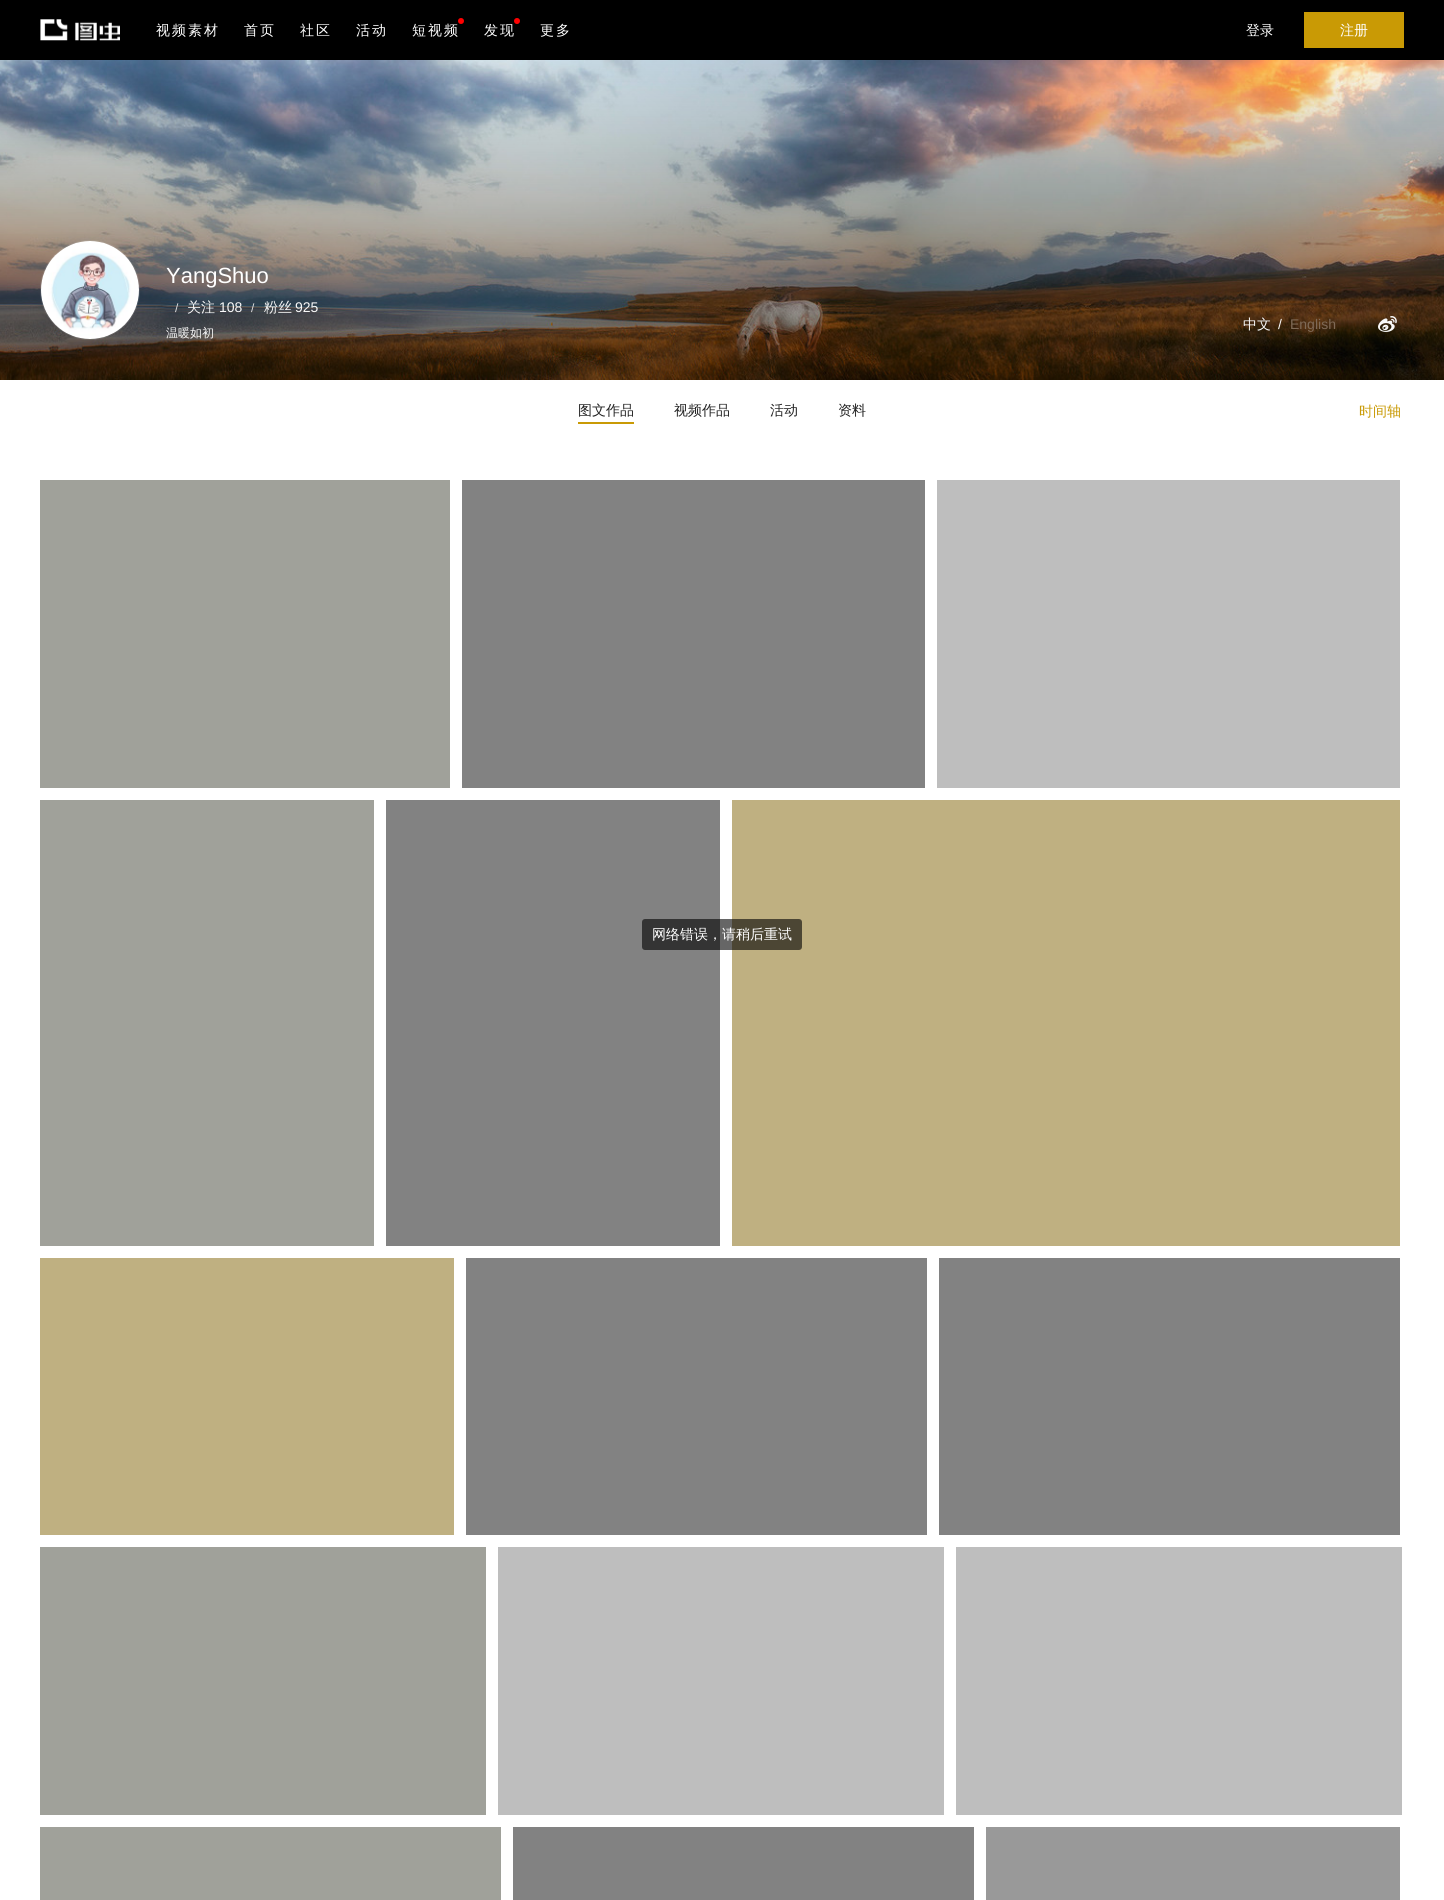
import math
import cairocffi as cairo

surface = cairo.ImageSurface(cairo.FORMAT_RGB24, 1444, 1900)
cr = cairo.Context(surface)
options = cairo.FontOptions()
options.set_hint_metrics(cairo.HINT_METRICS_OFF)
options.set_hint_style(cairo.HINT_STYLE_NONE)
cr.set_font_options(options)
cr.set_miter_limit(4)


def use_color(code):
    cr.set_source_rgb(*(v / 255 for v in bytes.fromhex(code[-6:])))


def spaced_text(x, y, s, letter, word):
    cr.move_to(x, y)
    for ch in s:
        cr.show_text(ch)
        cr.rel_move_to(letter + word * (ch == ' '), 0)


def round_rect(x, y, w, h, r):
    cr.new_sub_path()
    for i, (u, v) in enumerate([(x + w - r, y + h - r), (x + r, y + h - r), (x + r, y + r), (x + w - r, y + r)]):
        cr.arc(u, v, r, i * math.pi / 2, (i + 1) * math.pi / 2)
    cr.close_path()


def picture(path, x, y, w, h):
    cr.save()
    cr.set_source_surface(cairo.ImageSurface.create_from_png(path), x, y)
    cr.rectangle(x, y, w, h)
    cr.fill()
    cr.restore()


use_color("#ffffff")
cr.paint()
use_color("#000000")
cr.rectangle(0, 0, 1444, 60)
cr.fill()
picture("img1.png", 40, 19, 80, 22)
cr.select_font_face("WenQuanYi Zen Hei Medium")
cr.set_font_size(14)
use_color("#ffffff")
spaced_text(156, 35, "视频素材", 2, 0)
spaced_text(244, 35, "首页", 2, 0)
spaced_text(300, 35, "社区", 2, 0)
spaced_text(356, 35, "活动", 2, 0)
use_color("#ff0000")
cr.new_path()
cr.arc(461, 21, 3, 0, 2 * math.pi)
cr.fill()
use_color("#ffffff")
spaced_text(412, 35, "短视频", 2, 0)
use_color("#ff0000")
cr.new_path()
cr.arc(517, 21, 3, 0, 2 * math.pi)
cr.fill()
use_color("#ffffff")
spaced_text(484, 35, "发现", 2, 0)
spaced_text(540, 35, "更多", 2, 0)
cr.move_to(1246, 35)
cr.show_text("登录")
use_color("#c99a05")
cr.rectangle(1304, 12, 100, 36)
cr.fill()
use_color("#ffffff")
cr.move_to(1340, 35)
cr.show_text("注册")
picture("img2.png", 0, 60, 1444, 320)
cr.arc(90, 290, 49.5, 0, 2 * math.pi)
cr.set_source_rgba(1, 1, 1, 0.1)
cr.set_line_width(1)
cr.stroke()
picture("img3.png", 41, 241, 98, 98)
cr.select_font_face("Liberation Sans")
cr.set_font_size(22)
use_color("#ffffff")
cr.move_to(166, 283)
cr.show_text("YangShuo")
cr.set_font_size(12)
use_color("#e0e0e0")
cr.move_to(175, 312)
cr.show_text("/")
cr.select_font_face("WenQuanYi Zen Hei Medium")
cr.set_font_size(14)
use_color("#f9f9f9")
cr.move_to(187, 312)
cr.show_text("关注")
cr.select_font_face("Liberation Sans")
cr.move_to(219, 312)
cr.show_text("108")
cr.set_font_size(12)
use_color("#e0e0e0")
cr.move_to(251, 312)
cr.show_text("/")
cr.select_font_face("WenQuanYi Zen Hei Medium")
cr.set_font_size(14)
use_color("#f9f9f9")
cr.move_to(264, 312)
cr.show_text("粉丝")
cr.select_font_face("Liberation Sans")
cr.move_to(295, 312)
cr.show_text("925")
cr.select_font_face("WenQuanYi Zen Hei Medium")
cr.set_font_size(12)
cr.move_to(166, 337)
cr.show_text("温暖如初")
cr.set_font_size(14)
cr.move_to(1243, 329)
cr.show_text("中文")
cr.select_font_face("Liberation Sans")
cr.move_to(1278, 329)
cr.show_text("/")
use_color("#7f6a57")
cr.move_to(1290, 329)
cr.show_text("English")
picture("img4.png", 1378, 316, 19, 16)
use_color("#c99a05")
cr.rectangle(578, 422, 56, 2)
cr.fill()
cr.select_font_face("WenQuanYi Zen Hei Medium")
use_color("#222222")
cr.move_to(578, 415)
cr.show_text("图文作品")
cr.move_to(674, 415)
cr.show_text("视频作品")
cr.move_to(770, 415)
cr.show_text("活动")
cr.move_to(838, 415)
cr.show_text("资料")
use_color("#c99a05")
cr.move_to(1359, 416)
cr.show_text("时间轴")
use_color("#a0a19a")
cr.rectangle(40, 480, 410, 308)
cr.fill()
use_color("#828282")
cr.rectangle(462, 480, 463, 308)
cr.fill()
use_color("#bebebe")
cr.rectangle(937, 480, 463, 308)
cr.fill()
use_color("#a0a19a")
cr.rectangle(40, 800, 334, 446)
cr.fill()
use_color("#828282")
cr.rectangle(386, 800, 334, 446)
cr.fill()
use_color("#bfb081")
cr.rectangle(732, 800, 668, 446)
cr.fill()
cr.rectangle(40, 1258, 414, 277)
cr.fill()
use_color("#828282")
cr.rectangle(466, 1258, 461, 277)
cr.fill()
cr.rectangle(939, 1258, 461, 277)
cr.fill()
use_color("#a0a19a")
cr.rectangle(40, 1547, 446, 268)
cr.fill()
use_color("#bebebe")
cr.rectangle(498, 1547, 446, 268)
cr.fill()
cr.rectangle(956, 1547, 446, 268)
cr.fill()
use_color("#a0a19a")
cr.rectangle(40, 1827, 461, 73)
cr.fill()
use_color("#828282")
cr.rectangle(513, 1827, 461, 73)
cr.fill()
use_color("#999999")
cr.rectangle(986, 1827, 414, 73)
cr.fill()
cr.set_source_rgba(0, 0, 0, 0.6)
round_rect(642, 919, 160, 31, 3)
cr.fill()
use_color("#ffffff")
cr.move_to(652, 939)
cr.show_text("网络错误，请稍后重试")
surface.write_to_png("result.png")
